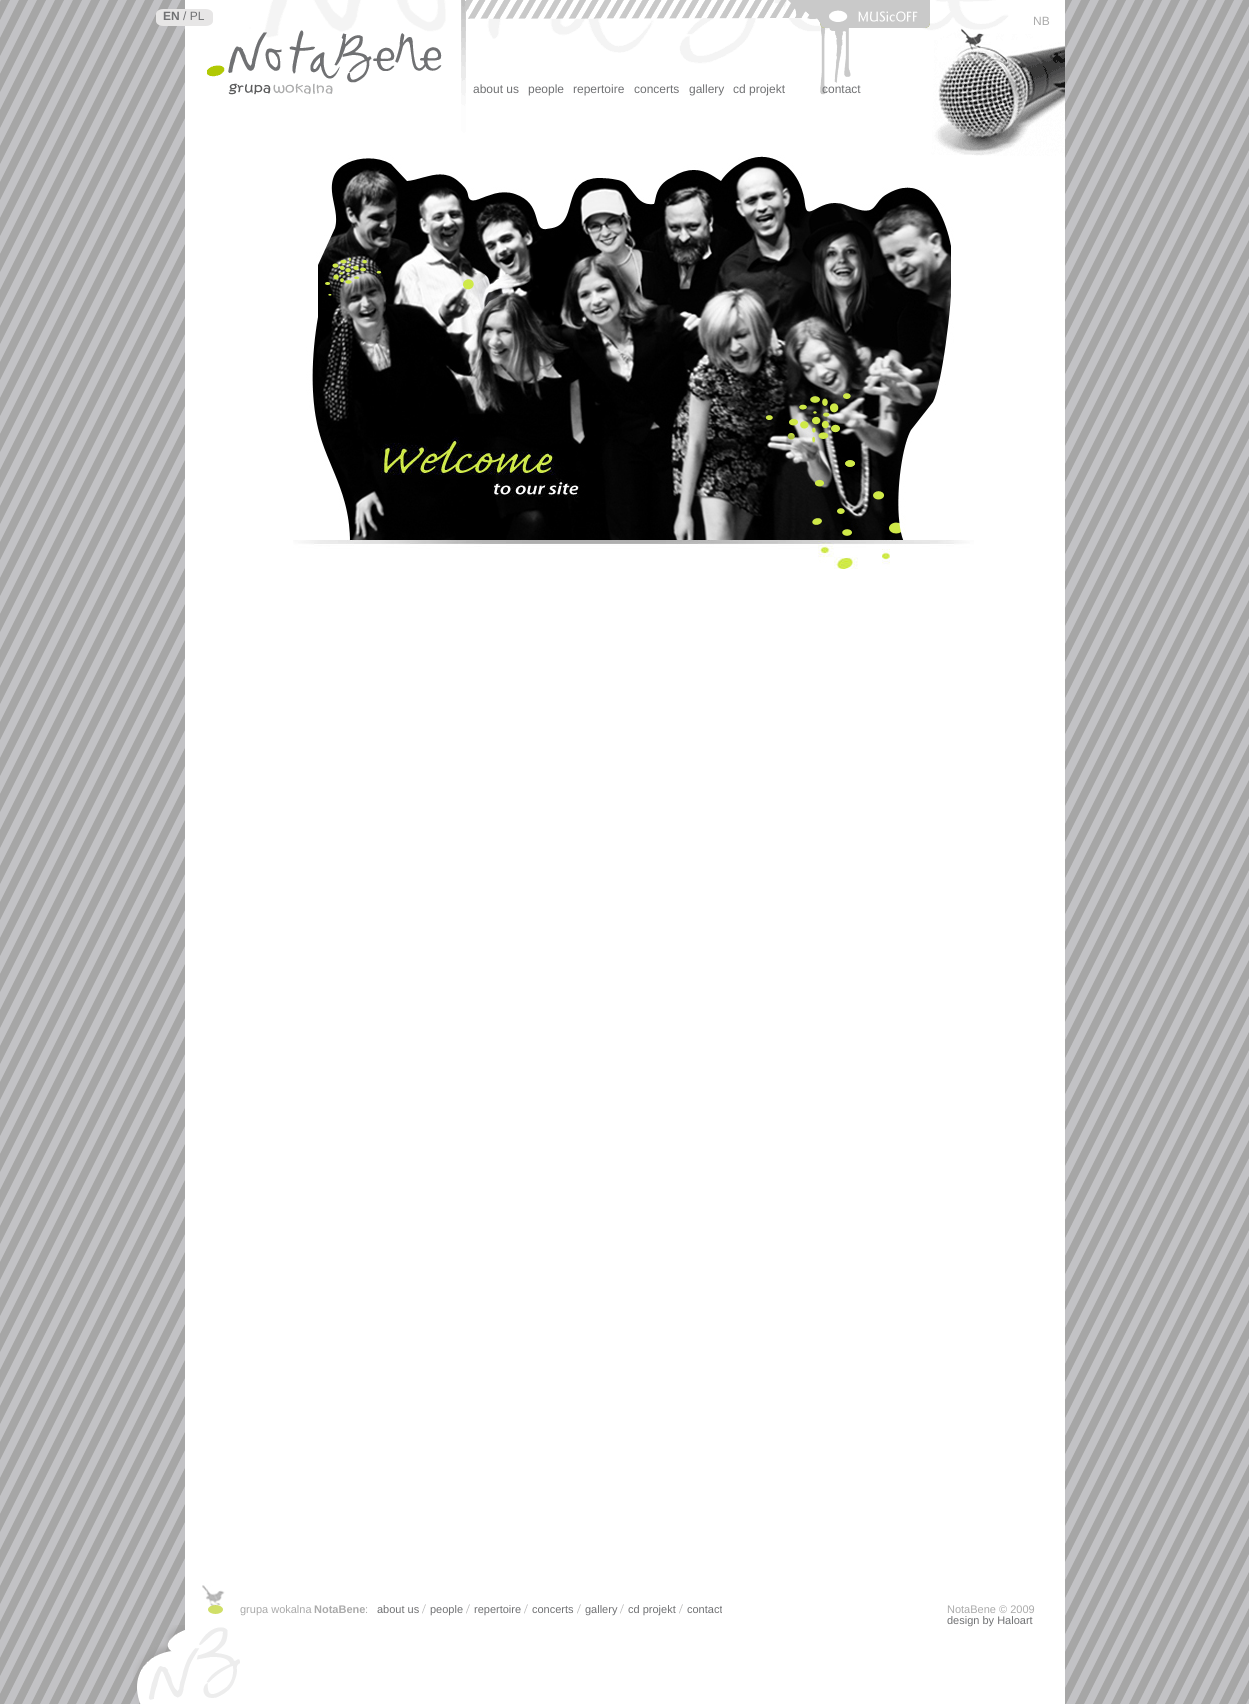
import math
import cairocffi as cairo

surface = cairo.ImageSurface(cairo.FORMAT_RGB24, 1249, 1704)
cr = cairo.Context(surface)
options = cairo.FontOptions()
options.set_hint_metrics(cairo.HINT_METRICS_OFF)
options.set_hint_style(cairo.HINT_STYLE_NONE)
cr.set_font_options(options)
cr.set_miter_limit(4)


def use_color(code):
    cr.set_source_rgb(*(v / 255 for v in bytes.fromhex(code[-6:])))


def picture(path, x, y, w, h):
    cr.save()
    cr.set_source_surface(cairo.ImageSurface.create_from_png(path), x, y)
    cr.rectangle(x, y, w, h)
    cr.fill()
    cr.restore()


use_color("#ffffff")
cr.paint()
picture("img1.png", 0, 0, 1249, 1704)
use_color("#ffffff")
cr.rectangle(185, 0, 880, 1704)
cr.fill()
picture("img2.png", 461, 0, 604, 156)
picture("img4.png", 207, 0, 239, 95)
picture("img3.png", 156, 9, 57, 17)
cr.select_font_face("Liberation Sans", cairo.FONT_SLANT_NORMAL, cairo.FONT_WEIGHT_BOLD)
cr.set_font_size(12)
use_color("#707173")
cr.move_to(163, 20)
cr.show_text("EN")
cr.select_font_face("Liberation Sans")
cr.move_to(183, 20)
cr.show_text("/ PL")
use_color("#aaaaaa")
cr.move_to(1033, 25)
cr.show_text("NB")
use_color("#707173")
cr.move_to(473, 93)
cr.show_text("about us")
cr.move_to(528, 93)
cr.show_text("people")
cr.move_to(573, 93)
cr.show_text("repertoire")
cr.move_to(634, 93)
cr.show_text("concerts")
cr.move_to(689, 93)
cr.show_text("gallery")
cr.move_to(733, 93)
cr.show_text("cd projekt")
cr.move_to(822, 93)
cr.show_text("contact")
picture("img5.png", 293, 155, 681, 414)
picture("img6.png", 202, 1585, 23, 29)
cr.set_font_size(11)
use_color("#aaaaaa")
cr.move_to(240, 1613)
cr.show_text("grupa wokalna")
cr.select_font_face("Liberation Sans", cairo.FONT_SLANT_NORMAL, cairo.FONT_WEIGHT_BOLD)
cr.move_to(314, 1613)
cr.show_text("NotaBene")
cr.select_font_face("Liberation Sans")
cr.move_to(365, 1613)
cr.show_text(":")
use_color("#707173")
cr.move_to(377, 1613)
cr.show_text("about us")
picture("img7.png", 422, 1604, 4, 10)
cr.move_to(430, 1613)
cr.show_text("people")
picture("img7.png", 466, 1604, 4, 10)
cr.move_to(474, 1613)
cr.show_text("repertoire")
picture("img7.png", 524, 1604, 4, 10)
cr.move_to(532, 1613)
cr.show_text("concerts")
picture("img7.png", 577, 1604, 4, 10)
cr.move_to(585, 1613)
cr.show_text("gallery")
picture("img7.png", 620, 1604, 4, 10)
cr.move_to(628, 1613)
cr.show_text("cd projekt")
picture("img7.png", 679, 1604, 4, 10)
cr.move_to(687, 1613)
cr.show_text("contact")
use_color("#aaaaaa")
cr.move_to(947, 1613)
cr.show_text("NotaBene © 2009")
use_color("#707173")
cr.move_to(947, 1624)
cr.show_text("design by Haloart")
picture("img8.png", 133, 1625, 107, 79)
surface.write_to_png("result.png")
